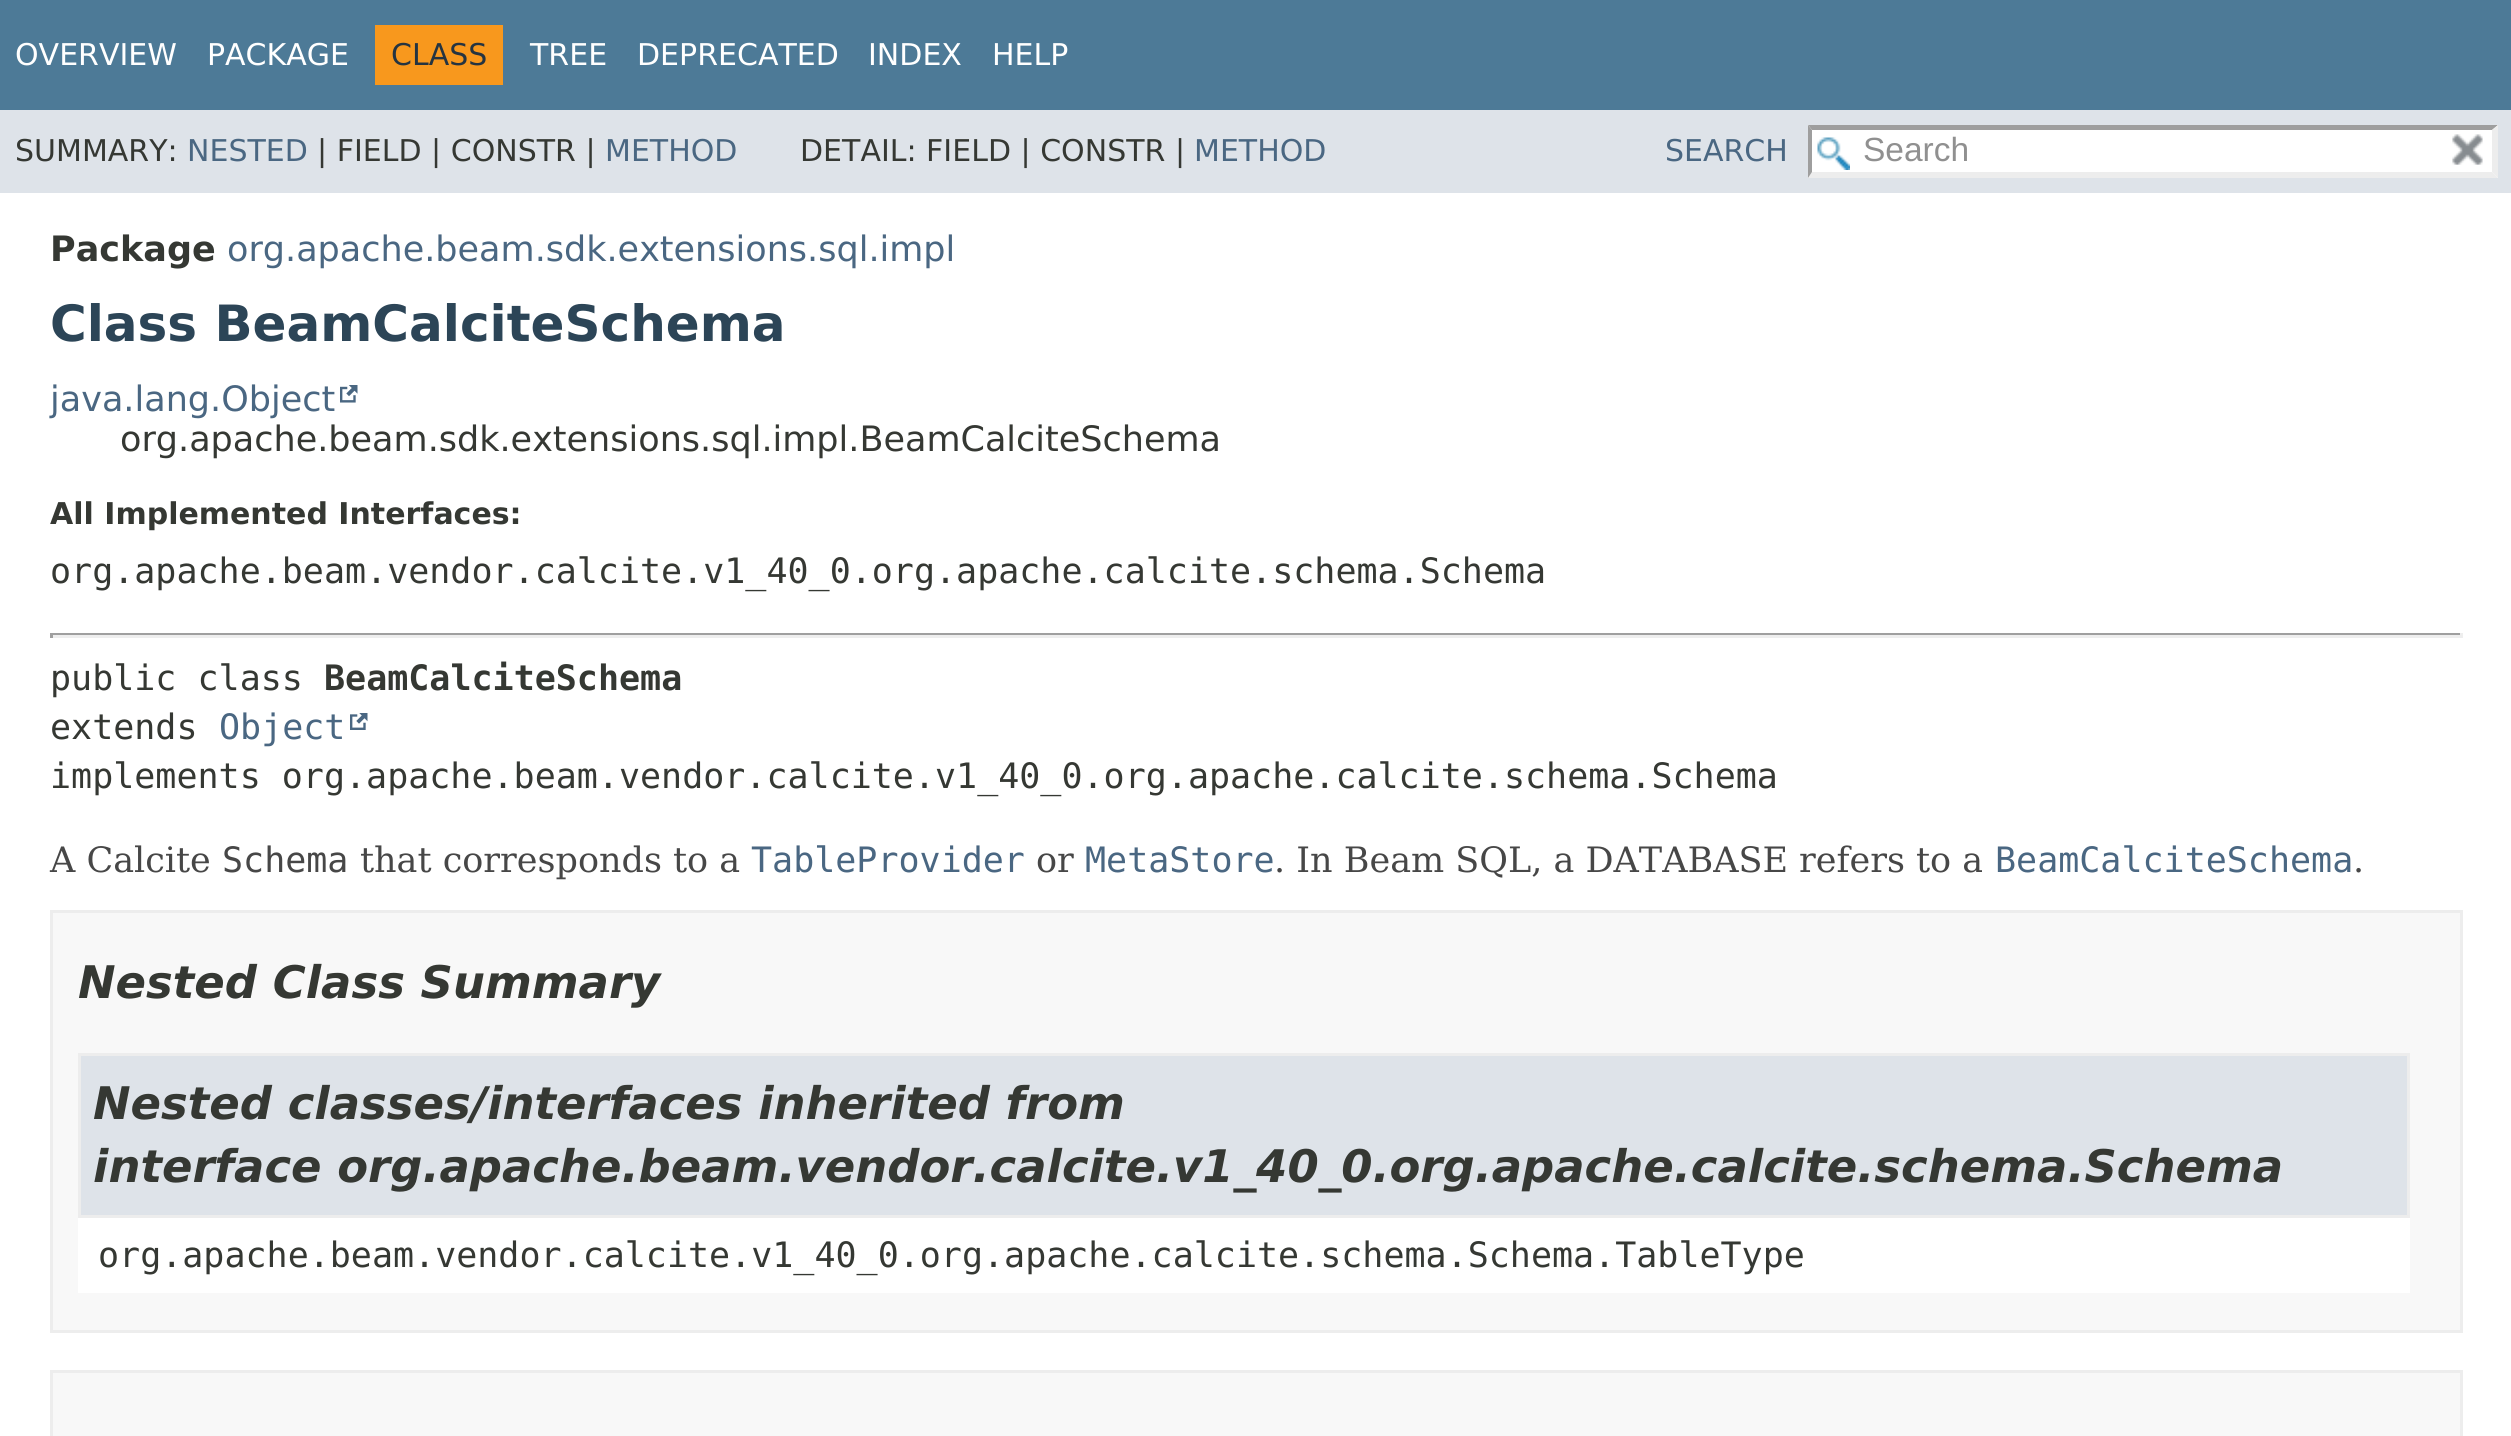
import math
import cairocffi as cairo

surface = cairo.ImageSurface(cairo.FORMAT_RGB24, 2511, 1436)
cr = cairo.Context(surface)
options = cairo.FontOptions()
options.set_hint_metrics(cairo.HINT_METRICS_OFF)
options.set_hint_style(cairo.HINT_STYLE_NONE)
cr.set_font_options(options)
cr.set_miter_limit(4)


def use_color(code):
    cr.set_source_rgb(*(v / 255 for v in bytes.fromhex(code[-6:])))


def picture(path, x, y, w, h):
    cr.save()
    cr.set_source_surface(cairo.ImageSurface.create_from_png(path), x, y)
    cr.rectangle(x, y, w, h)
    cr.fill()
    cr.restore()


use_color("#ffffff")
cr.paint()
use_color("#4d7a97")
cr.rectangle(0, 0, 2511, 110)
cr.fill()
cr.select_font_face("DejaVu Sans")
cr.set_font_size(30)
use_color("#ffffff")
cr.move_to(15, 65)
cr.show_text("OVERVIEW")
cr.move_to(207, 65)
cr.show_text("PACKAGE")
use_color("#f8981d")
cr.rectangle(375, 25, 128, 60)
cr.fill()
use_color("#253441")
cr.move_to(391, 65)
cr.show_text("CLASS")
use_color("#ffffff")
cr.move_to(530, 65)
cr.show_text("TREE")
cr.move_to(637, 65)
cr.show_text("DEPRECATED")
cr.move_to(868, 65)
cr.show_text("INDEX")
cr.move_to(992, 65)
cr.show_text("HELP")
use_color("#dee3e9")
cr.rectangle(0, 110, 2511, 83)
cr.fill()
use_color("#353833")
cr.move_to(15, 161)
cr.show_text("SUMMARY:")
use_color("#4a6782")
cr.move_to(187, 161)
cr.show_text("NESTED")
use_color("#353833")
cr.move_to(317, 161)
cr.show_text("| FIELD | CONSTR |")
use_color("#4a6782")
cr.move_to(605, 161)
cr.show_text("METHOD")
use_color("#353833")
cr.move_to(800, 161)
cr.show_text("DETAIL: FIELD | CONSTR |")
use_color("#4a6782")
cr.move_to(1194, 161)
cr.show_text("METHOD")
cr.move_to(1665, 161)
cr.show_text("SEARCH")
use_color("#ffffff")
cr.rectangle(1808, 125, 690, 53)
cr.fill()
picture("img1.png", 1817, 137, 33, 33)
use_color("#9e9e9e")
cr.new_path()
cr.move_to(1808, 125)
cr.line_to(2498, 125)
cr.line_to(2492, 130)
cr.line_to(1812, 130)
cr.close_path()
cr.fill()
use_color("#ededed")
cr.new_path()
cr.move_to(2498, 125)
cr.line_to(2498, 178)
cr.line_to(2492, 172)
cr.line_to(2492, 130)
cr.close_path()
cr.fill()
cr.new_path()
cr.move_to(2498, 178)
cr.line_to(1808, 178)
cr.line_to(1812, 172)
cr.line_to(2492, 172)
cr.close_path()
cr.fill()
use_color("#9e9e9e")
cr.new_path()
cr.move_to(1808, 178)
cr.line_to(1808, 125)
cr.line_to(1812, 130)
cr.line_to(1812, 172)
cr.close_path()
cr.fill()
cr.select_font_face("Liberation Sans")
cr.set_font_size(33.5)
use_color("#909090")
cr.move_to(1863, 161)
cr.show_text("Search")
picture("img2.png", 2452, 134, 31, 31)
cr.select_font_face("DejaVu Sans", cairo.FONT_SLANT_NORMAL, cairo.FONT_WEIGHT_BOLD)
cr.set_font_size(35)
use_color("#353833")
cr.move_to(50, 261)
cr.show_text("Package")
cr.select_font_face("DejaVu Sans")
use_color("#4a6782")
cr.move_to(227, 261)
cr.show_text("org.apache.beam.sdk.extensions.sql.impl")
cr.select_font_face("DejaVu Sans", cairo.FONT_SLANT_NORMAL, cairo.FONT_WEIGHT_BOLD)
cr.set_font_size(50)
use_color("#2c4557")
cr.move_to(50, 341)
cr.show_text("Class BeamCalciteSchema")
cr.select_font_face("DejaVu Sans")
cr.set_font_size(35)
use_color("#4a6782")
cr.move_to(50, 411)
cr.show_text("java.lang.Object")
picture("img3.png", 340, 385, 18, 18)
use_color("#353833")
cr.move_to(120, 451)
cr.show_text("org.apache.beam.sdk.extensions.sql.impl.BeamCalciteSchema")
cr.select_font_face("DejaVu Sans", cairo.FONT_SLANT_NORMAL, cairo.FONT_WEIGHT_BOLD)
cr.set_font_size(30)
cr.move_to(50, 524)
cr.show_text("All Implemented Interfaces:")
cr.select_font_face("DejaVu Sans Mono")
cr.set_font_size(35)
cr.move_to(50, 583)
cr.show_text("org.apache.beam.vendor.calcite.v1_40_0.org.apache.calcite.schema.Schema")
use_color("#9f9f9f")
cr.rectangle(50, 633, 2413, 2)
cr.fill()
use_color("#eeeeee")
cr.rectangle(2460, 633, 3, 5)
cr.fill()
cr.rectangle(50, 635, 2413, 3)
cr.fill()
use_color("#9f9f9f")
cr.rectangle(50, 633, 3, 5)
cr.fill()
use_color("#353833")
cr.move_to(50, 690)
cr.show_text("public class")
cr.select_font_face("DejaVu Sans Mono", cairo.FONT_SLANT_NORMAL, cairo.FONT_WEIGHT_BOLD)
cr.move_to(324, 690)
cr.show_text("BeamCalciteSchema")
cr.select_font_face("DejaVu Sans Mono")
cr.move_to(50, 739)
cr.show_text("extends")
use_color("#4a6782")
cr.move_to(219, 739)
cr.show_text("Object")
picture("img4.png", 350, 713, 18, 17)
use_color("#353833")
cr.move_to(50, 788)
cr.show_text("implements org.apache.beam.vendor.calcite.v1_40_0.org.apache.calcite.schema.Schema")
cr.select_font_face("DejaVu Serif")
use_color("#474747")
cr.move_to(50, 872)
cr.show_text("A Calcite")
cr.select_font_face("DejaVu Sans Mono")
cr.move_to(222, 872)
cr.show_text("Schema")
cr.select_font_face("DejaVu Serif")
cr.move_to(360, 872)
cr.show_text("that corresponds to a")
cr.select_font_face("DejaVu Sans Mono")
use_color("#4a6782")
cr.move_to(751, 872)
cr.show_text("TableProvider")
cr.select_font_face("DejaVu Serif")
use_color("#474747")
cr.move_to(1036, 872)
cr.show_text("or")
cr.select_font_face("DejaVu Sans Mono")
use_color("#4a6782")
cr.move_to(1085, 872)
cr.show_text("MetaStore")
cr.select_font_face("DejaVu Serif")
use_color("#474747")
cr.move_to(1274, 872)
cr.show_text(". In Beam SQL, a DATABASE refers to a")
cr.select_font_face("DejaVu Sans Mono")
use_color("#4a6782")
cr.move_to(1995, 872)
cr.show_text("BeamCalciteSchema")
cr.select_font_face("DejaVu Serif")
use_color("#474747")
cr.move_to(2353, 872)
cr.show_text(".")
use_color("#f8f8f8")
cr.rectangle(51.5, 911.5, 2410, 420)
cr.fill_preserve()
use_color("#ededed")
cr.set_line_width(3)
cr.stroke()
cr.select_font_face("DejaVu Sans", cairo.FONT_SLANT_ITALIC, cairo.FONT_WEIGHT_BOLD)
cr.set_font_size(44.95)
use_color("#353833")
cr.move_to(78, 998)
cr.show_text("Nested Class Summary")
use_color("#ffffff")
cr.rectangle(78, 1218, 2332, 75)
cr.fill()
use_color("#dee3e9")
cr.rectangle(79.5, 1054.5, 2329, 162)
cr.fill_preserve()
use_color("#ededed")
cr.stroke()
use_color("#353833")
cr.move_to(93, 1119)
cr.show_text("Nested classes/interfaces inherited from")
cr.move_to(93, 1182)
cr.show_text("interface org.apache.beam.vendor.calcite.v1_40_0.org.apache.calcite.schema.Schema")
cr.select_font_face("DejaVu Sans Mono")
cr.set_font_size(35)
cr.move_to(98, 1267)
cr.show_text("org.apache.beam.vendor.calcite.v1_40_0.org.apache.calcite.schema.Schema.TableType")
use_color("#f8f8f8")
cr.rectangle(51.5, 1371.5, 2410, 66)
cr.fill_preserve()
use_color("#ededed")
cr.stroke()
surface.write_to_png("result.png")
